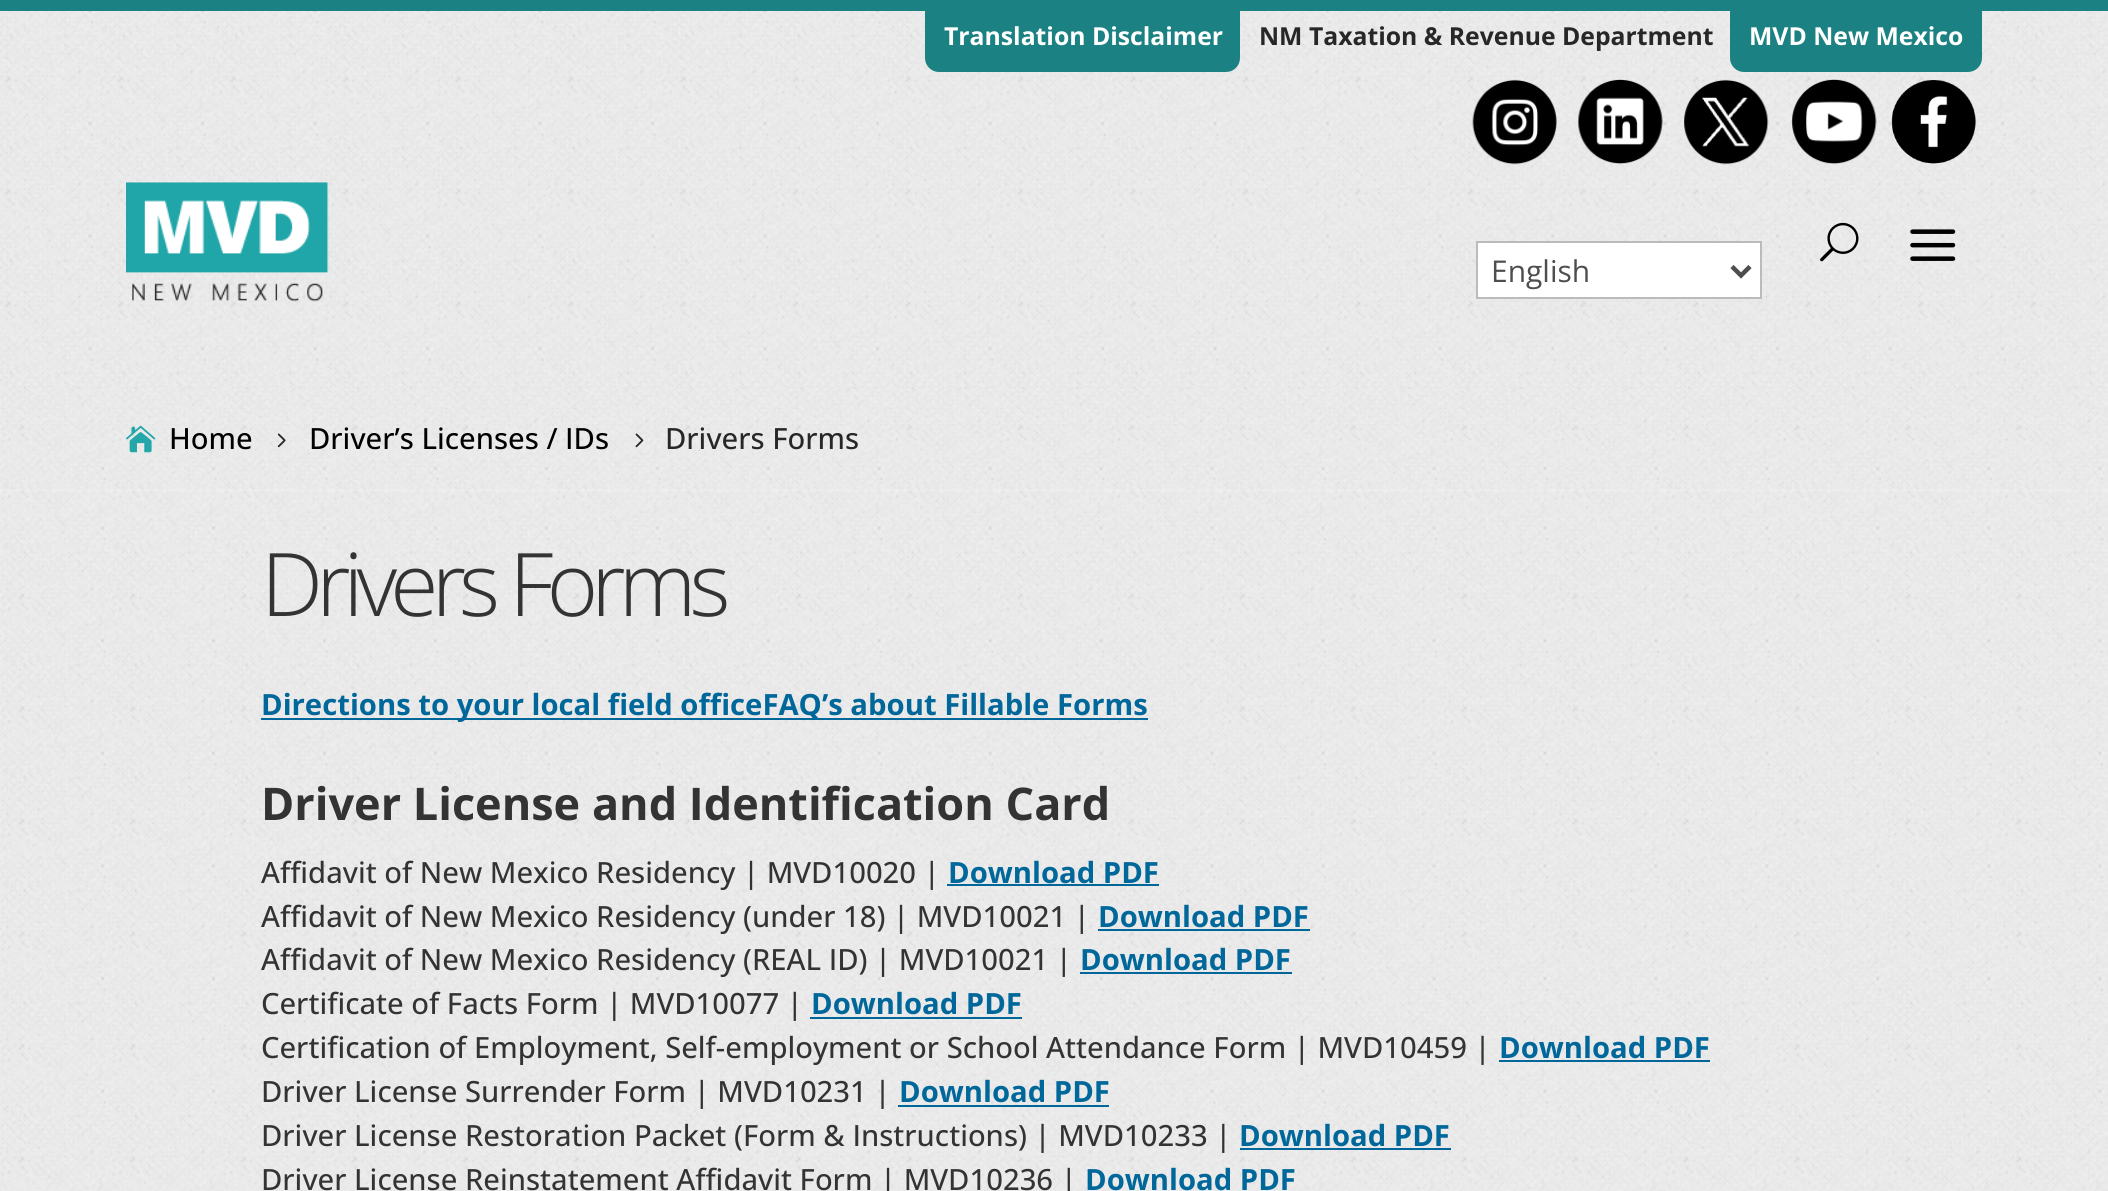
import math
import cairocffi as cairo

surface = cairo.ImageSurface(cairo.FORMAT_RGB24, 2108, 1191)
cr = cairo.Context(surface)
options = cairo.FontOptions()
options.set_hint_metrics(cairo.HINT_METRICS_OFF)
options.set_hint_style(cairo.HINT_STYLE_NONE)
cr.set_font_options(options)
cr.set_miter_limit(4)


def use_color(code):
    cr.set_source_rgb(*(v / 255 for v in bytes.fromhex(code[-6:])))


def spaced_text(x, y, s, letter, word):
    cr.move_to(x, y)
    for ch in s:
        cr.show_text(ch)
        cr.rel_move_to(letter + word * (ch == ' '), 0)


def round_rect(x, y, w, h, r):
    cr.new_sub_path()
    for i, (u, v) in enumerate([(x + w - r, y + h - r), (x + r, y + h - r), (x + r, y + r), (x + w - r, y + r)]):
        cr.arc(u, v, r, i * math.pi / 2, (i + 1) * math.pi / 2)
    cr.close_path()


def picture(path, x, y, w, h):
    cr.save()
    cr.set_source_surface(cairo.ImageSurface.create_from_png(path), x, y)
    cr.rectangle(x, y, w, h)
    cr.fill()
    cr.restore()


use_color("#ffffff")
cr.paint()
picture("img1.png", 0, 11, 2108, 376)
use_color("#1c8182")
cr.rectangle(0, 0, 2108, 11)
cr.fill()
round_rect(925, -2, 315, 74, 14)
cr.fill()
cr.select_font_face("Open Sans", cairo.FONT_SLANT_NORMAL, cairo.FONT_WEIGHT_BOLD)
cr.set_font_size(24.75)
use_color("#ffffff")
cr.move_to(944, 45)
cr.show_text("Translation Disclaimer")
use_color("#282728")
cr.move_to(1259, 45)
cr.show_text("NM Taxation & Revenue Department")
use_color("#1c8182")
round_rect(1730, -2, 252, 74, 14)
cr.fill()
use_color("#ffffff")
cr.move_to(1749, 45)
cr.show_text("MVD New Mexico")
picture("img2.png", 1472, 79, 85, 86)
picture("img3.png", 1577, 79, 86, 86)
picture("img4.png", 1684, 79, 85, 86)
picture("img5.png", 1791, 79, 86, 86)
picture("img6.png", 1891, 80, 86, 84)
picture("img7.png", 126, 182, 203, 120)
picture("img8.png", 1820, 222, 39, 40)
picture("img9.png", 1910, 229, 46, 32)
cr.rectangle(1477, 242, 284, 56)
cr.fill_preserve()
use_color("#bbbbbb")
cr.stroke()
cr.new_path()
cr.move_to(1732, 266.5)
cr.line_to(1741, 275.5)
cr.line_to(1750, 266.5)
use_color("#4e4e4e")
cr.set_line_width(4.5)
cr.stroke()
cr.select_font_face("Open Sans")
cr.set_font_size(30)
cr.move_to(1491, 282)
cr.show_text("English")
picture("img10.png", 0, 387, 2108, 104)
picture("img11.png", 126, 425, 30, 28)
cr.select_font_face("Open Sans Medium")
cr.set_font_size(29.25)
use_color("#000000")
cr.move_to(169, 449)
cr.show_text("Home")
picture("img12.png", 277, 433, 9, 15)
cr.move_to(309, 449)
cr.show_text("Driver’s Licenses / IDs")
picture("img13.png", 635, 433, 9, 15)
use_color("#282728")
cr.move_to(665, 449)
cr.show_text("Drivers Forms")
picture("img14.png", 0, 490, 2108, 701)
cr.select_font_face("Open Sans Light")
cr.set_font_size(87.75)
use_color("#333333")
spaced_text(261, 616, "Drivers Forms", -6.75, 0)
use_color("#00679b")
cr.rectangle(261, 718, 887, 2)
cr.fill()
cr.select_font_face("Open Sans", cairo.FONT_SLANT_NORMAL, cairo.FONT_WEIGHT_BOLD)
cr.set_font_size(29.25)
cr.move_to(261, 715)
cr.show_text("Directions to your local field officeFAQ’s about Fillable Forms")
cr.set_font_size(45)
use_color("#333333")
cr.move_to(261, 820)
cr.show_text("Driver License and Identification Card")
cr.select_font_face("Open Sans Medium")
cr.set_font_size(29.25)
cr.move_to(261, 883)
cr.show_text("Affidavit of New Mexico Residency | MVD10020 |")
cr.select_font_face("Open Sans", cairo.FONT_SLANT_NORMAL, cairo.FONT_WEIGHT_BOLD)
use_color("#00679b")
cr.move_to(948, 883)
cr.show_text("Download PDF")
cr.rectangle(947, 884, 212, 2)
cr.fill()
cr.select_font_face("Open Sans Medium")
use_color("#333333")
cr.move_to(261, 927)
cr.show_text("Affidavit of New Mexico Residency (under 18) | MVD10021 |")
cr.select_font_face("Open Sans", cairo.FONT_SLANT_NORMAL, cairo.FONT_WEIGHT_BOLD)
use_color("#00679b")
cr.move_to(1098, 927)
cr.show_text("Download PDF")
cr.rectangle(1098, 929, 212, 2)
cr.fill()
cr.select_font_face("Open Sans Medium")
use_color("#333333")
cr.move_to(261, 970)
cr.show_text("Affidavit of New Mexico Residency (REAL ID) | MVD10021 |")
cr.select_font_face("Open Sans", cairo.FONT_SLANT_NORMAL, cairo.FONT_WEIGHT_BOLD)
use_color("#00679b")
cr.move_to(1080, 970)
cr.show_text("Download PDF")
cr.rectangle(1080, 972, 212, 2)
cr.fill()
cr.select_font_face("Open Sans Medium")
use_color("#333333")
cr.move_to(261, 1014)
cr.show_text("Certificate of Facts Form | MVD10077 |")
cr.select_font_face("Open Sans", cairo.FONT_SLANT_NORMAL, cairo.FONT_WEIGHT_BOLD)
use_color("#00679b")
cr.move_to(811, 1014)
cr.show_text("Download PDF")
cr.rectangle(810, 1017, 212, 2)
cr.fill()
cr.select_font_face("Open Sans Medium")
use_color("#333333")
cr.move_to(261, 1058)
cr.show_text("Certification of Employment, Self-employment or School Attendance Form | MVD10459 |")
cr.select_font_face("Open Sans", cairo.FONT_SLANT_NORMAL, cairo.FONT_WEIGHT_BOLD)
use_color("#00679b")
cr.move_to(1499, 1058)
cr.show_text("Download PDF")
cr.rectangle(1499, 1060, 211, 2)
cr.fill()
cr.select_font_face("Open Sans Medium")
use_color("#333333")
cr.move_to(261, 1102)
cr.show_text("Driver License Surrender Form | MVD10231 |")
cr.select_font_face("Open Sans", cairo.FONT_SLANT_NORMAL, cairo.FONT_WEIGHT_BOLD)
use_color("#00679b")
cr.move_to(899, 1102)
cr.show_text("Download PDF")
cr.rectangle(898, 1105, 211, 2)
cr.fill()
cr.select_font_face("Open Sans Medium")
use_color("#333333")
cr.move_to(261, 1146)
cr.show_text("Driver License Restoration Packet (Form & Instructions) | MVD10233 |")
cr.select_font_face("Open Sans", cairo.FONT_SLANT_NORMAL, cairo.FONT_WEIGHT_BOLD)
use_color("#00679b")
cr.move_to(1239, 1146)
cr.show_text("Download PDF")
cr.rectangle(1240, 1148, 211, 2)
cr.fill()
cr.select_font_face("Open Sans Medium")
use_color("#333333")
cr.move_to(261, 1190)
cr.show_text("Driver License Reinstatement Affidavit Form | MVD10236 |")
cr.select_font_face("Open Sans", cairo.FONT_SLANT_NORMAL, cairo.FONT_WEIGHT_BOLD)
use_color("#00679b")
cr.move_to(1085, 1190)
cr.show_text("Download PDF")
surface.write_to_png("result.png")
